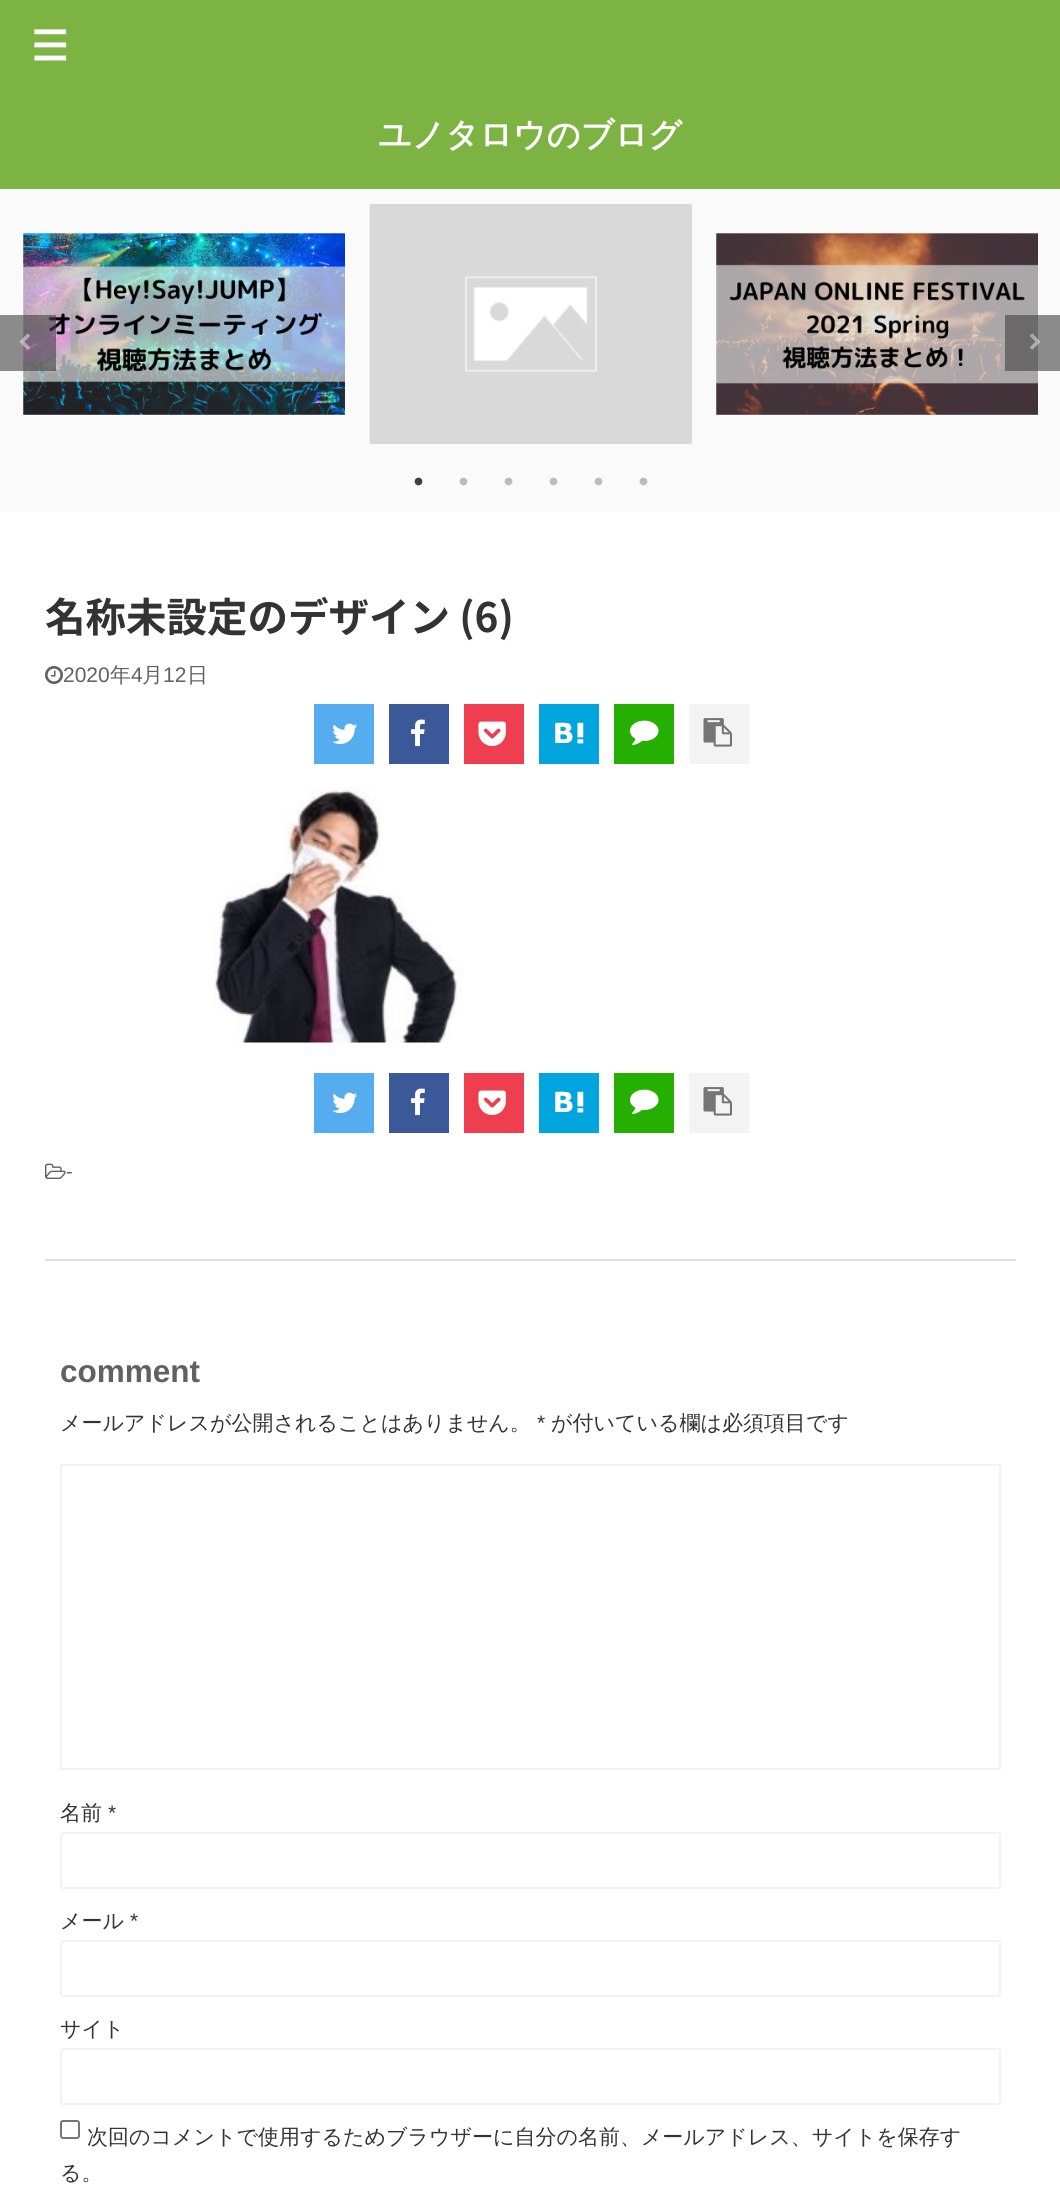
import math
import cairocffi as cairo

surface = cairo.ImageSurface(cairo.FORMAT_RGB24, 1060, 2205)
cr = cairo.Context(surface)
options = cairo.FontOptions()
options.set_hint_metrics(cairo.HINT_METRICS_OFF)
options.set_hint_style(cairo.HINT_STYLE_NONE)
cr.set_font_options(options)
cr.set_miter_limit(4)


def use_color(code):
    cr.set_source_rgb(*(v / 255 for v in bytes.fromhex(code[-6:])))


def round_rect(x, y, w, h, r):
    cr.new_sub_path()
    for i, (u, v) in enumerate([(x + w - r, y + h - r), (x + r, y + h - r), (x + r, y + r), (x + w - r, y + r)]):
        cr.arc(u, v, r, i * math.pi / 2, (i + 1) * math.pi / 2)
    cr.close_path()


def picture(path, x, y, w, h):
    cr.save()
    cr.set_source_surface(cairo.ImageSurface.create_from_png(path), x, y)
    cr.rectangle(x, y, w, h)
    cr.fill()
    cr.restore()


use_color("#fafafa")
cr.paint()
use_color("#7cb342")
cr.rectangle(0, 0, 1060, 189)
cr.fill()
picture("img1.png", 34, 29, 33, 32)
cr.select_font_face("WenQuanYi Zen Hei", cairo.FONT_SLANT_NORMAL, cairo.FONT_WEIGHT_BOLD)
cr.set_font_size(33)
use_color("#ffffff")
cr.move_to(378, 146)
cr.show_text("ユノタロウのブログ")
cr.rectangle(24, 414, 321, 2)
cr.fill()
picture("img2.png", 23, 233, 322, 182)
cr.rectangle(371, 204, 321, 240)
cr.fill()
picture("img3.png", 369, 204, 323, 240)
cr.rectangle(717, 414, 321, 2)
cr.fill()
picture("img4.png", 716, 233, 322, 182)
cr.set_source_rgba(0.259, 0.259, 0.259, 0.6)
cr.rectangle(0, 315, 56, 56)
cr.fill()
picture("img5.png", 19, 333, 11, 17)
cr.rectangle(1005, 315, 55, 56)
cr.fill()
picture("img6.png", 1030, 333, 11, 17)
picture("img7.png", 414, 477, 9, 9)
picture("img8.png", 459, 477, 9, 9)
picture("img8.png", 504, 477, 9, 9)
picture("img8.png", 549, 477, 9, 9)
picture("img8.png", 594, 477, 9, 9)
picture("img8.png", 639, 477, 9, 9)
use_color("#ffffff")
cr.rectangle(0, 512, 1060, 1693)
cr.fill()
cr.select_font_face("Noto Sans JP", cairo.FONT_SLANT_NORMAL, cairo.FONT_WEIGHT_BOLD)
cr.set_font_size(40.5)
use_color("#333333")
cr.move_to(45, 632)
cr.show_text("名称未設定のデザイン (6)")
picture("img9.png", 45, 666, 18, 18)
cr.select_font_face("Liberation Sans")
cr.set_font_size(21)
use_color("#616161")
cr.move_to(63, 682)
cr.show_text("2020")
cr.select_font_face("WenQuanYi Zen Hei Medium")
cr.move_to(110, 682)
cr.show_text("年")
cr.select_font_face("Liberation Sans")
cr.move_to(131, 682)
cr.show_text("4")
cr.select_font_face("WenQuanYi Zen Hei Medium")
cr.move_to(142, 682)
cr.show_text("月")
cr.select_font_face("Liberation Sans")
cr.move_to(163, 682)
cr.show_text("12")
cr.select_font_face("WenQuanYi Zen Hei Medium")
cr.move_to(187, 682)
cr.show_text("日")
use_color("#55acee")
cr.rectangle(314, 704, 60, 60)
cr.fill()
picture("img10.png", 332, 723, 26, 21)
use_color("#3b5998")
cr.rectangle(389, 704, 60, 60)
cr.fill()
picture("img11.png", 411, 719, 14, 28)
use_color("#f03e51")
cr.rectangle(464, 704, 60, 60)
cr.fill()
picture("img12.png", 478, 721, 28, 25)
use_color("#00a5de")
cr.rectangle(539, 704, 60, 60)
cr.fill()
picture("img13.png", 555, 722, 29, 22)
use_color("#25af00")
cr.rectangle(614, 704, 60, 60)
cr.fill()
picture("img14.png", 630, 720, 29, 25)
use_color("#f3f3f3")
cr.rectangle(689, 704, 60, 60)
cr.fill()
picture("img15.png", 703, 718, 29, 29)
picture("img16.png", 213, 787, 250, 256)
use_color("#55acee")
cr.rectangle(314, 1073, 60, 60)
cr.fill()
picture("img10.png", 332, 1092, 26, 21)
use_color("#3b5998")
cr.rectangle(389, 1073, 60, 60)
cr.fill()
picture("img11.png", 411, 1088, 14, 28)
use_color("#f03e51")
cr.rectangle(464, 1073, 60, 60)
cr.fill()
picture("img12.png", 478, 1090, 28, 25)
use_color("#00a5de")
cr.rectangle(539, 1073, 60, 60)
cr.fill()
picture("img13.png", 555, 1091, 29, 22)
use_color("#25af00")
cr.rectangle(614, 1073, 60, 60)
cr.fill()
picture("img14.png", 630, 1089, 29, 25)
use_color("#f3f3f3")
cr.rectangle(689, 1073, 60, 60)
cr.fill()
picture("img15.png", 703, 1087, 29, 29)
picture("img17.png", 45, 1163, 21, 16)
cr.select_font_face("Liberation Sans")
cr.set_font_size(20)
use_color("#616161")
cr.move_to(66, 1178)
cr.show_text("-")
use_color("#e0e0e0")
cr.rectangle(45, 1259, 971, 2)
cr.fill()
cr.select_font_face("Liberation Sans", cairo.FONT_SLANT_NORMAL, cairo.FONT_WEIGHT_BOLD)
cr.set_font_size(31.5)
use_color("#616161")
cr.move_to(60, 1382)
cr.show_text("comment")
cr.select_font_face("WenQuanYi Zen Hei Medium")
cr.set_font_size(21)
use_color("#333333")
cr.move_to(60, 1430)
cr.show_text("メールアドレスが公開されることはありません。")
cr.select_font_face("Liberation Sans")
cr.move_to(537, 1430)
cr.show_text("*")
cr.select_font_face("WenQuanYi Zen Hei Medium")
cr.move_to(551, 1430)
cr.show_text("が付いている欄は必須項目です")
cr.rectangle(61, 1465, 939, 304)
use_color("#f2f2f2")
cr.stroke()
use_color("#333333")
cr.move_to(60, 1820)
cr.show_text("名前")
cr.select_font_face("Liberation Sans")
cr.move_to(108, 1820)
cr.show_text("*")
round_rect(61, 1833, 939, 55, 2)
use_color("#f2f2f2")
cr.stroke()
cr.select_font_face("WenQuanYi Zen Hei Medium")
use_color("#333333")
cr.move_to(60, 1928)
cr.show_text("メール")
cr.select_font_face("Liberation Sans")
cr.move_to(130, 1928)
cr.show_text("*")
round_rect(61, 1941, 939, 55, 2)
use_color("#f2f2f2")
cr.stroke()
cr.select_font_face("WenQuanYi Zen Hei Medium")
use_color("#333333")
cr.move_to(60, 2036)
cr.show_text("サイト")
round_rect(61, 2049, 939, 55, 2)
use_color("#f2f2f2")
cr.stroke()
round_rect(61, 2121, 18, 17, 2)
use_color("#767676")
cr.stroke()
use_color("#333333")
cr.move_to(87, 2144)
cr.show_text("次回のコメントで使用するためブラウザーに自分の名前、メールアドレス、サイトを保存す")
cr.move_to(60, 2180)
cr.show_text("る。")
surface.write_to_png("result.png")
